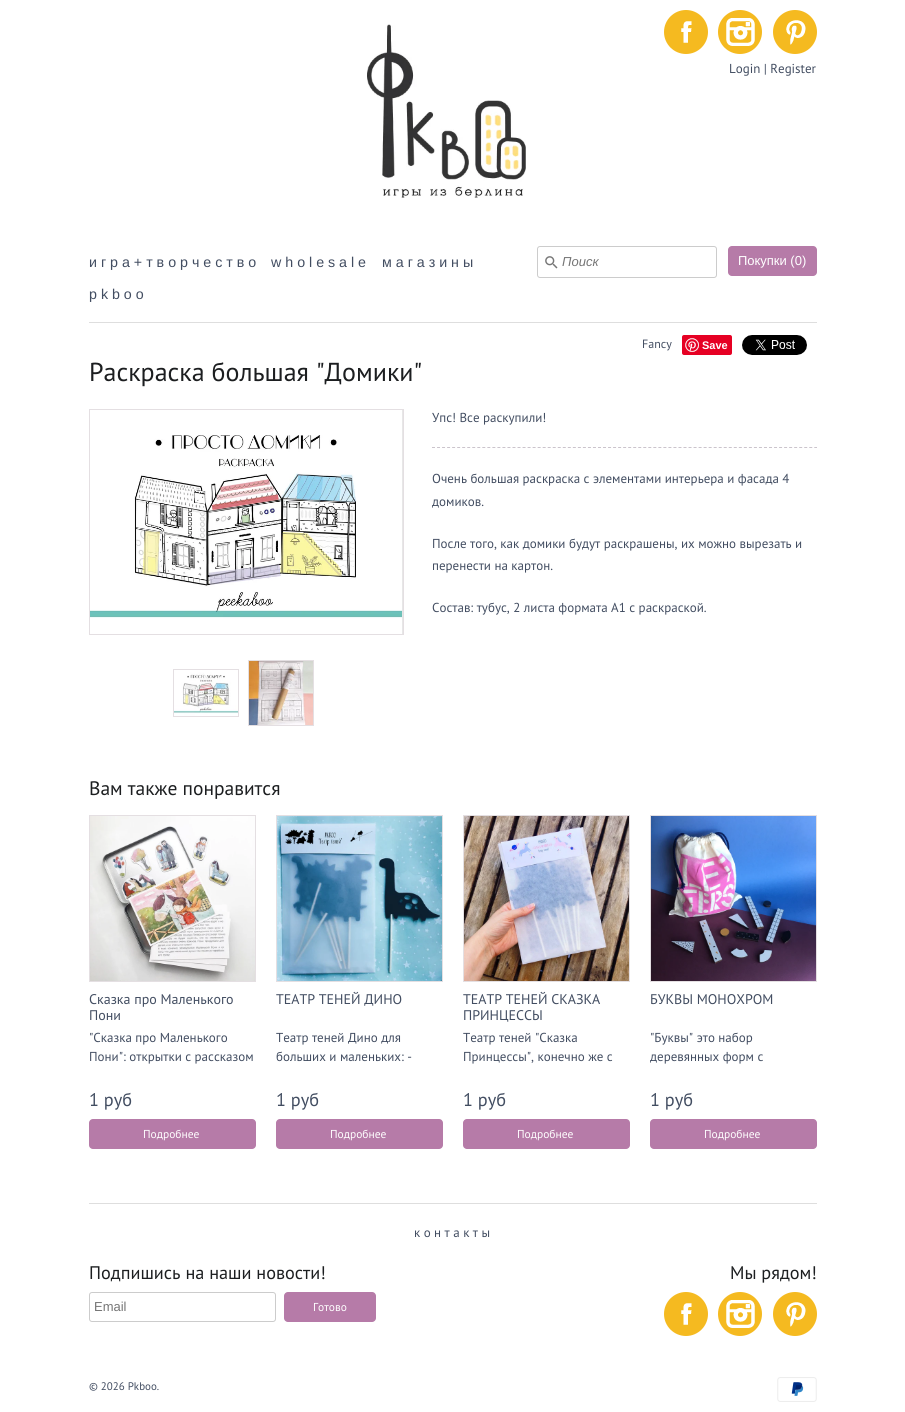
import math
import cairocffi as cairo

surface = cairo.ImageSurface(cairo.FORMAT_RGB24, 905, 1412)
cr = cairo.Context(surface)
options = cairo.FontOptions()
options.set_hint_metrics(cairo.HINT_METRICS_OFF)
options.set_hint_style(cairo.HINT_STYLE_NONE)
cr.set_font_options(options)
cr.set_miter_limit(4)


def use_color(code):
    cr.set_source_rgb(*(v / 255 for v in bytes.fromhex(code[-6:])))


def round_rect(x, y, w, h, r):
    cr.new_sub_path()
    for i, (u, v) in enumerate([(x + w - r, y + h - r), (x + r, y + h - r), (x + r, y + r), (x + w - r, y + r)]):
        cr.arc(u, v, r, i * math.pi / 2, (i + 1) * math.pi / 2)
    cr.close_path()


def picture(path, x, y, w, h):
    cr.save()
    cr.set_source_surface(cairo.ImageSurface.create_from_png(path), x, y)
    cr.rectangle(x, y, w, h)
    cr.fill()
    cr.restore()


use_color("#ffffff")
cr.paint()
use_color("#f5ba20")
cr.arc(686, 32, 22, 0, 2 * math.pi)
cr.fill()
picture("img1.png", 681, 21, 11, 22)
cr.arc(740, 32, 22, 0, 2 * math.pi)
cr.fill()
picture("img2.png", 726, 18, 29, 28)
cr.arc(795, 32, 22, 0, 2 * math.pi)
cr.fill()
picture("img3.png", 786, 20, 20, 25)
picture("img4.png", 367, 24, 159, 174)
cr.select_font_face("PT Sans")
cr.set_font_size(13)
use_color("#424d61")
cr.move_to(729, 73)
cr.show_text("Login | Register")
use_color("#dedede")
cr.rectangle(89, 322, 728, 1)
cr.fill()
cr.select_font_face("Liberation Sans")
cr.set_font_size(14.25)
use_color("#424d61")
cr.move_to(89, 267)
cr.show_text("и г р а + т в о р ч е с т в о")
cr.move_to(271, 267)
cr.show_text("w h o l e s a l e")
cr.move_to(382, 267)
cr.show_text("м а г а з и н ы")
cr.move_to(89, 299)
cr.show_text("p k b o o")
picture("img5.png", 545, 256, 13, 13)
round_rect(537.5, 246.5, 179, 31, 2.5)
use_color("#cccccc")
cr.set_line_width(1)
cr.stroke()
cr.select_font_face("Liberation Sans", cairo.FONT_SLANT_ITALIC)
cr.set_font_size(13)
use_color("#757575")
cr.move_to(562, 266)
cr.show_text("Поиск")
use_color("#b67ba8")
round_rect(728, 246, 89, 30, 4)
cr.fill()
cr.select_font_face("Liberation Sans")
use_color("#ffffff")
cr.move_to(738, 265)
cr.show_text("Покупки (0)")
cr.select_font_face("PT Sans")
cr.set_font_size(12)
use_color("#424d61")
cr.move_to(642, 348)
cr.show_text("Fancy")
use_color("#e60023")
round_rect(682, 335, 50, 20, 2)
cr.fill()
picture("img6.png", 685, 338, 14, 14)
cr.select_font_face("Liberation Sans", cairo.FONT_SLANT_NORMAL, cairo.FONT_WEIGHT_BOLD)
cr.set_font_size(11)
use_color("#ffffff")
cr.move_to(702, 349)
cr.show_text("Save")
picture("img7.png", 742, 335, 65, 20)
cr.select_font_face("PT Sans")
cr.set_font_size(26)
use_color("#1c1e20")
cr.move_to(89, 381)
cr.show_text("Раскраска большая \"Домики\"")
use_color("#e7e7e7")
cr.rectangle(402, 410, 1, 224)
cr.fill()
cr.rectangle(89.5, 409.5, 314, 225)
use_color("#e4dfe2")
cr.stroke()
picture("img8.png", 90, 410, 312, 224)
cr.rectangle(173.5, 669.5, 65, 47)
cr.stroke()
picture("img9.png", 174, 670, 64, 46)
cr.rectangle(248.5, 660.5, 65, 65)
cr.stroke()
picture("img10.png", 249, 661, 64, 64)
cr.set_font_size(13)
use_color("#424d61")
cr.move_to(432, 422)
cr.show_text("Упс! Все раскупили!")
cr.new_path()
cr.move_to(432, 447.5)
cr.line_to(817, 447.5)
use_color("#cbc4cc")
cr.set_dash([3, 2.03])
cr.stroke()
use_color("#424d61")
cr.move_to(432, 483)
cr.show_text("Очень большая раскраска с элементами интерьера и фасада 4")
cr.move_to(432, 506)
cr.show_text("домиков.")
cr.move_to(432, 548)
cr.show_text("После того, как домики будут раскрашены, их можно вырезать и")
cr.move_to(432, 570)
cr.show_text("перенести на картон.")
cr.move_to(432, 612)
cr.show_text("Состав: тубус, 2 листа формата А1 с раскраской.")
cr.set_font_size(19.5)
use_color("#1c1e20")
cr.move_to(89, 795)
cr.show_text("Вам также понравится")
cr.rectangle(89.5, 815.5, 166, 166)
use_color("#e4dfe2")
cr.set_dash([])
cr.stroke()
picture("img11.png", 90, 816, 165, 165)
cr.set_font_size(14)
use_color("#424d61")
cr.move_to(89, 1004)
cr.show_text("Сказка про Маленького")
cr.move_to(89, 1020)
cr.show_text("Пони")
cr.set_font_size(13)
cr.move_to(89, 1042)
cr.show_text("\"Сказка про Маленького")
cr.move_to(89, 1061)
cr.show_text("Пони\": открытки с рассказом")
cr.set_font_size(18.25)
cr.move_to(89, 1106)
cr.show_text("1 руб")
use_color("#b67ba8")
round_rect(89, 1119, 167, 30, 4)
cr.fill()
cr.set_font_size(11.5)
use_color("#ffffff")
cr.move_to(143, 1138)
cr.show_text("Подробнее")
cr.rectangle(276.5, 815.5, 166, 166)
use_color("#e4dfe2")
cr.stroke()
picture("img12.png", 277, 816, 165, 165)
cr.set_font_size(14)
use_color("#424d61")
cr.move_to(276, 1004)
cr.show_text("ТЕАТР ТЕНЕЙ ДИНО")
cr.set_font_size(13)
cr.move_to(276, 1042)
cr.show_text("Театр теней Дино для")
cr.move_to(276, 1061)
cr.show_text("больших и маленьких: -")
cr.set_font_size(18.25)
cr.move_to(276, 1106)
cr.show_text("1 руб")
use_color("#b67ba8")
round_rect(276, 1119, 167, 30, 4)
cr.fill()
cr.set_font_size(11.5)
use_color("#ffffff")
cr.move_to(330, 1138)
cr.show_text("Подробнее")
cr.rectangle(463.5, 815.5, 166, 166)
use_color("#e4dfe2")
cr.stroke()
picture("img13.png", 464, 816, 165, 165)
cr.set_font_size(14)
use_color("#424d61")
cr.move_to(463, 1004)
cr.show_text("ТЕАТР ТЕНЕЙ СКАЗКА")
cr.move_to(463, 1020)
cr.show_text("ПРИНЦЕССЫ")
cr.set_font_size(13)
cr.move_to(463, 1042)
cr.show_text("Театр теней \"Сказка")
cr.move_to(463, 1061)
cr.show_text("Принцессы\", конечно же с")
cr.set_font_size(18.25)
cr.move_to(463, 1106)
cr.show_text("1 руб")
use_color("#b67ba8")
round_rect(463, 1119, 167, 30, 4)
cr.fill()
cr.set_font_size(11.5)
use_color("#ffffff")
cr.move_to(517, 1138)
cr.show_text("Подробнее")
cr.rectangle(650.5, 815.5, 166, 166)
use_color("#e4dfe2")
cr.stroke()
picture("img14.png", 651, 816, 165, 165)
cr.set_font_size(14)
use_color("#424d61")
cr.move_to(650, 1004)
cr.show_text("БУКВЫ МОНОХРОМ")
cr.set_font_size(13)
cr.move_to(650, 1042)
cr.show_text("\"Буквы\" это набор")
cr.save()
cr.rectangle(650, 1029, 167, 40)
cr.clip()
cr.move_to(650, 1061)
cr.show_text("деревянных форм с")
cr.restore()
cr.set_font_size(18.25)
cr.move_to(650, 1106)
cr.show_text("1 руб")
use_color("#b67ba8")
round_rect(650, 1119, 167, 30, 4)
cr.fill()
cr.set_font_size(11.5)
use_color("#ffffff")
cr.move_to(704, 1138)
cr.show_text("Подробнее")
use_color("#dedede")
cr.rectangle(89, 1203, 728, 1)
cr.fill()
cr.set_font_size(13)
use_color("#424d61")
cr.move_to(414, 1237)
cr.show_text("к о н т а к т ы")
cr.set_font_size(18.25)
use_color("#1c1e20")
cr.move_to(89, 1279)
cr.show_text("Подпишись на наши новости!")
round_rect(89.5, 1292.5, 186, 29, 2.5)
use_color("#cccccc")
cr.stroke()
cr.select_font_face("Liberation Sans")
cr.set_font_size(13)
use_color("#757575")
cr.move_to(94, 1311)
cr.show_text("Email")
use_color("#b67ba8")
round_rect(284, 1292, 92, 30, 4)
cr.fill()
cr.select_font_face("PT Sans")
cr.set_font_size(11.5)
use_color("#ffffff")
cr.move_to(313, 1311)
cr.show_text("Готово")
cr.set_font_size(18.25)
use_color("#1c1e20")
cr.move_to(730, 1279)
cr.show_text("Мы рядом!")
use_color("#f5ba20")
cr.new_path()
cr.arc(686, 1314, 22, 0, 2 * math.pi)
cr.fill()
picture("img1.png", 681, 1303, 11, 22)
cr.arc(740, 1314, 22, 0, 2 * math.pi)
cr.fill()
picture("img2.png", 726, 1300, 29, 28)
cr.arc(795, 1314, 22, 0, 2 * math.pi)
cr.fill()
picture("img3.png", 786, 1302, 20, 25)
cr.set_font_size(11)
use_color("#424d61")
cr.move_to(89, 1390)
cr.show_text("© 2026 Pkboo.")
picture("img15.png", 777, 1377, 40, 25)
surface.write_to_png("result.png")
